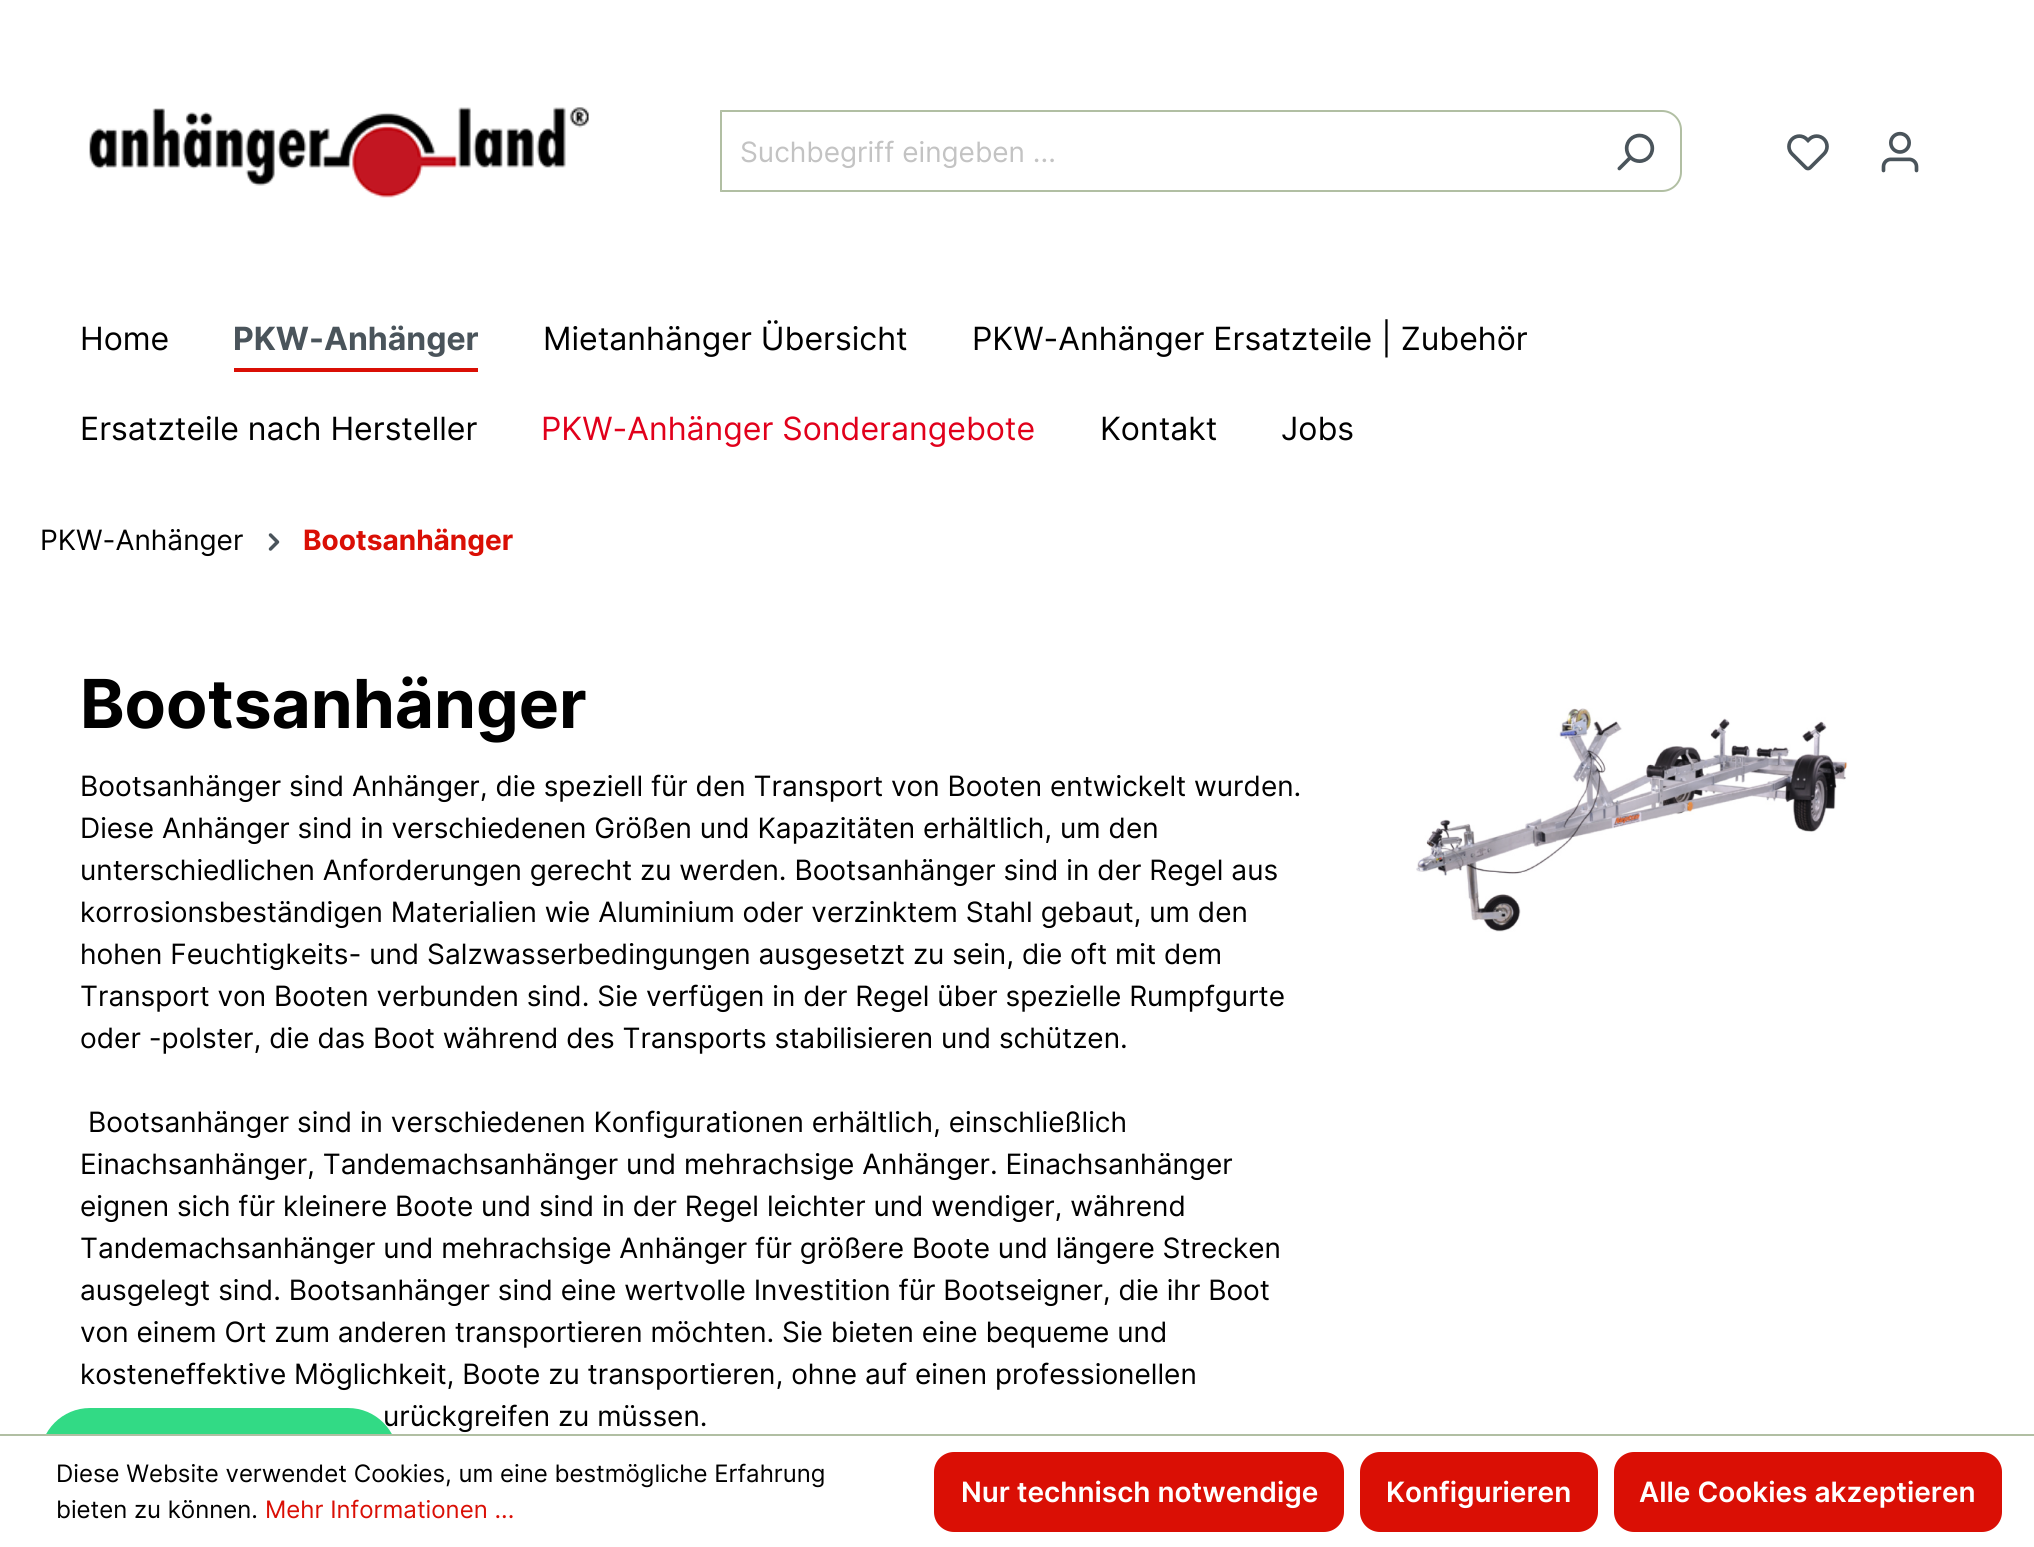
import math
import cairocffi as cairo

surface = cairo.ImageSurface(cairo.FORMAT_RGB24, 2034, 1547)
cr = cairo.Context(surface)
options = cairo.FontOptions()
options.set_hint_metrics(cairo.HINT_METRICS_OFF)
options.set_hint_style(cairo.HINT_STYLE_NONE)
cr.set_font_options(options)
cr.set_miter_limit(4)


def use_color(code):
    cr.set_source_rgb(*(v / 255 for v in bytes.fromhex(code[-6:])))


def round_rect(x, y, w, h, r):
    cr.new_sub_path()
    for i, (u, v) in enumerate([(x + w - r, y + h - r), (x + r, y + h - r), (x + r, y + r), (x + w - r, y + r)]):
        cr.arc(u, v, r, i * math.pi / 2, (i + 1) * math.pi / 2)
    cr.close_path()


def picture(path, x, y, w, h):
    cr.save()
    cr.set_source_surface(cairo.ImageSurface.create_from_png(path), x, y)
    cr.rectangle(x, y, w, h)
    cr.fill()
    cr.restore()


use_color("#ffffff")
cr.paint()
picture("img1.png", 89, 107, 500, 91)
use_color("#b1bfa3")
cr.new_path()
cr.move_to(720, 110)
cr.line_to(1590, 110)
cr.line_to(1590, 112)
cr.line_to(722, 112)
cr.close_path()
cr.fill()
cr.new_path()
cr.move_to(1590, 192)
cr.line_to(720, 192)
cr.line_to(722, 190)
cr.line_to(1590, 190)
cr.close_path()
cr.fill()
cr.set_source_rgba(0.216, 0.357, 0.078, 0.39)
cr.new_path()
cr.move_to(720, 192)
cr.line_to(720, 110)
cr.line_to(722, 112)
cr.line_to(722, 190)
cr.close_path()
cr.fill()
cr.select_font_face("Inter")
cr.set_font_size(28)
use_color("#c3c3c3")
cr.move_to(740, 162)
cr.show_text("Suchbegriff eingeben ...")
use_color("#ffffff")
cr.new_path()
cr.move_to(1588, 110)
cr.line_to(1662, 110)
cr.curve_to(1673, 110, 1682, 119, 1682, 130)
cr.line_to(1682, 172)
cr.curve_to(1682, 183, 1673, 192, 1662, 192)
cr.line_to(1588, 192)
cr.close_path()
cr.fill()
use_color("#b1bfa3")
cr.set_fill_rule(cairo.FILL_RULE_EVEN_ODD)
cr.new_path()
cr.move_to(1588, 110)
cr.line_to(1662, 110)
cr.curve_to(1673, 110, 1682, 119, 1682, 130)
cr.line_to(1682, 172)
cr.curve_to(1682, 183, 1673, 192, 1662, 192)
cr.line_to(1588, 192)
cr.close_path()
cr.move_to(1588, 112)
cr.line_to(1662, 112)
cr.curve_to(1672, 112, 1680, 120, 1680, 130)
cr.line_to(1680, 172)
cr.curve_to(1680, 182, 1672, 190, 1662, 190)
cr.line_to(1588, 190)
cr.close_path()
cr.fill()
picture("img2.png", 1617, 133, 38, 38)
picture("img3.png", 1787, 134, 42, 37)
picture("img4.png", 1881, 131, 38, 42)
cr.set_font_size(32)
use_color("#000000")
cr.move_to(80, 350)
cr.show_text("Home")
use_color("#da0f05")
cr.rectangle(234, 368, 244, 4)
cr.fill()
cr.select_font_face("Inter", cairo.FONT_SLANT_NORMAL, cairo.FONT_WEIGHT_BOLD)
use_color("#4a545b")
cr.move_to(233, 350)
cr.show_text("PKW-Anhänger")
cr.select_font_face("Inter")
use_color("#000000")
cr.move_to(543, 350)
cr.show_text("Mietanhänger Übersicht")
cr.move_to(972, 350)
cr.show_text("PKW-Anhänger Ersatzteile | Zubehör")
cr.move_to(80, 440)
cr.show_text("Ersatzteile nach Hersteller")
use_color("#e1001b")
cr.move_to(541, 440)
cr.show_text("PKW-Anhänger Sonderangebote")
use_color("#000000")
cr.move_to(1100, 440)
cr.show_text("Kontakt")
cr.move_to(1281, 440)
cr.show_text("Jobs")
cr.set_font_size(28)
cr.move_to(40, 550)
cr.show_text("PKW-Anhänger")
picture("img5.png", 268, 533, 12, 18)
cr.select_font_face("Inter", cairo.FONT_SLANT_NORMAL, cairo.FONT_WEIGHT_BOLD)
use_color("#da0f05")
cr.move_to(303, 550)
cr.show_text("Bootsanhänger")
cr.set_font_size(67.5)
use_color("#000000")
cr.move_to(80, 728)
cr.show_text("Bootsanhänger")
cr.select_font_face("Inter")
cr.set_font_size(28)
cr.move_to(80, 796)
cr.show_text("Bootsanhänger sind Anhänger, die speziell für den Transport von Booten entwickelt wurden.")
cr.move_to(80, 838)
cr.show_text("Diese Anhänger sind in verschiedenen Größen und Kapazitäten erhältlich, um den")
cr.move_to(80, 880)
cr.show_text("unterschiedlichen Anforderungen gerecht zu werden. Bootsanhänger sind in der Regel aus")
cr.move_to(80, 922)
cr.show_text("korrosionsbeständigen Materialien wie Aluminium oder verzinktem Stahl gebaut, um den")
cr.move_to(80, 964)
cr.show_text("hohen Feuchtigkeits- und Salzwasserbedingungen ausgesetzt zu sein, die oft mit dem")
cr.move_to(80, 1006)
cr.show_text("Transport von Booten verbunden sind. Sie verfügen in der Regel über spezielle Rumpfgurte")
cr.move_to(80, 1048)
cr.show_text("oder -polster, die das Boot während des Transports stabilisieren und schützen.")
cr.move_to(88, 1132)
cr.show_text("Bootsanhänger sind in verschiedenen Konfigurationen erhältlich, einschließlich")
cr.move_to(80, 1174)
cr.show_text("Einachsanhänger, Tandemachsanhänger und mehrachsige Anhänger. Einachsanhänger")
cr.move_to(80, 1216)
cr.show_text("eignen sich für kleinere Boote und sind in der Regel leichter und wendiger, während")
cr.move_to(80, 1258)
cr.show_text("Tandemachsanhänger und mehrachsige Anhänger für größere Boote und längere Strecken")
cr.move_to(80, 1300)
cr.show_text("ausgelegt sind. Bootsanhänger sind eine wertvolle Investition für Bootseigner, die ihr Boot")
cr.move_to(80, 1342)
cr.show_text("von einem Ort zum anderen transportieren möchten. Sie bieten eine bequeme und")
cr.move_to(80, 1384)
cr.show_text("kosteneffektive Möglichkeit, Boote zu transportieren, ohne auf einen professionellen")
cr.move_to(383, 1426)
cr.show_text("urückgreifen zu müssen.")
picture("img6.png", 1416, 708, 432, 224)
use_color("#32da85")
round_rect(40, 1408, 358, 100, 50)
cr.fill()
use_color("#ffffff")
cr.rectangle(40, 1436, 358, 72)
cr.fill()
use_color("#b1bfa3")
cr.rectangle(0, 1434, 2034, 2)
cr.fill()
cr.set_font_size(24)
use_color("#000000")
cr.move_to(56, 1482)
cr.show_text("Diese Website verwendet Cookies, um eine bestmögliche Erfahrung")
cr.move_to(56, 1518)
cr.show_text("bieten zu können.")
use_color("#da0f05")
cr.move_to(265, 1518)
cr.show_text("Mehr Informationen ...")
round_rect(935, 1453, 408, 78, 19)
cr.fill_preserve()
cr.stroke()
cr.select_font_face("Inter SemiBold")
cr.set_font_size(28)
use_color("#ffffff")
cr.move_to(961, 1502)
cr.show_text("Nur technisch notwendige")
use_color("#da0f05")
round_rect(1361, 1453, 236, 78, 19)
cr.fill_preserve()
cr.stroke()
use_color("#ffffff")
cr.move_to(1386, 1502)
cr.show_text("Konfigurieren")
use_color("#da0f05")
round_rect(1615, 1453, 386, 78, 19)
cr.fill_preserve()
cr.stroke()
use_color("#ffffff")
cr.move_to(1639, 1502)
cr.show_text("Alle Cookies akzeptieren")
surface.write_to_png("result.png")
